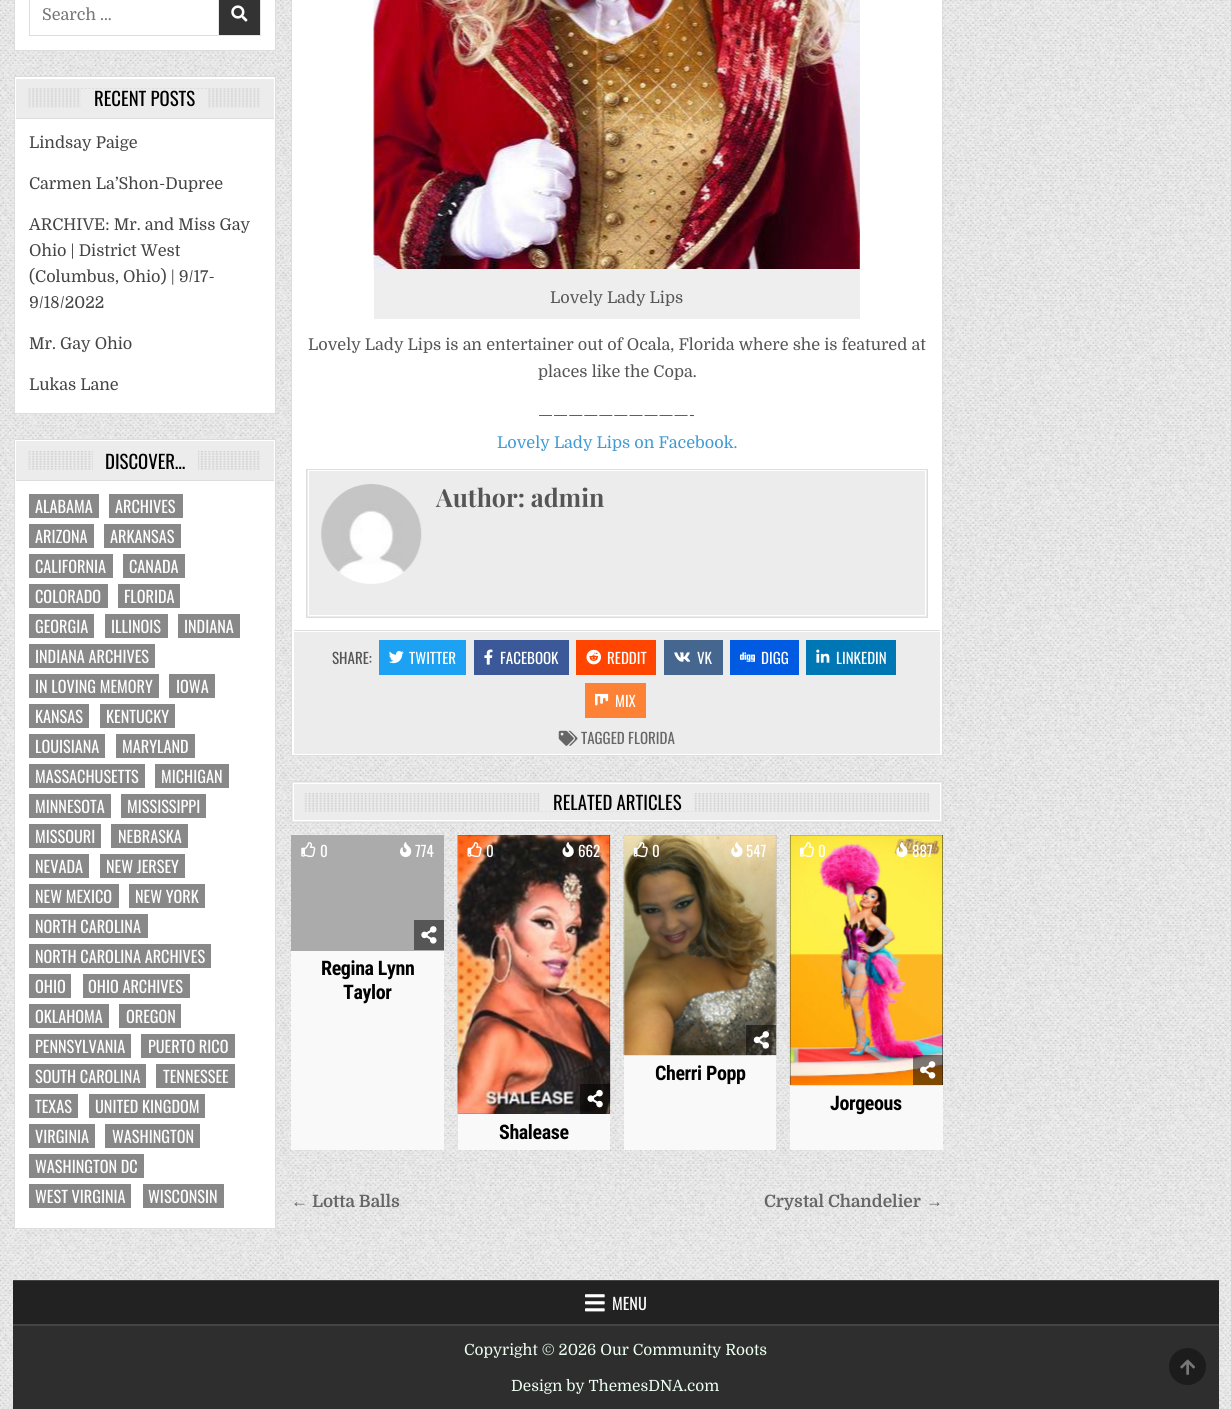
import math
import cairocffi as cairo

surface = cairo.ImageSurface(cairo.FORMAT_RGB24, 1231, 1409)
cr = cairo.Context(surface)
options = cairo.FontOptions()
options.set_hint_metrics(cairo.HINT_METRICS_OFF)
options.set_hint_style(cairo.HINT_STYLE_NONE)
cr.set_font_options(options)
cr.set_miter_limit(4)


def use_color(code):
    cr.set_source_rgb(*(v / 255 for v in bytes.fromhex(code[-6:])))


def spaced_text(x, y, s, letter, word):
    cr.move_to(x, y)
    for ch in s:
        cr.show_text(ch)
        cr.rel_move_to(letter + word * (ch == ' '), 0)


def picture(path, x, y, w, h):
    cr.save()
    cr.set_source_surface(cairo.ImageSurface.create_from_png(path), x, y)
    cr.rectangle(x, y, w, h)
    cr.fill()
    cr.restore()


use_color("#ffffff")
cr.paint()
picture("img1.png", 0, 0, 1231, 1409)
use_color("#ffffff")
cr.rectangle(14.5, -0.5, 261, 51)
cr.fill_preserve()
use_color("#dddddd")
cr.set_line_width(1)
cr.stroke()
cr.rectangle(29.5, -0.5, 231, 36)
cr.stroke()
cr.select_font_face("Domine")
cr.set_font_size(16.25)
use_color("#757575")
cr.move_to(42, 20)
cr.show_text("Search …")
use_color("#333333")
cr.rectangle(218.5, -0.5, 42, 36)
cr.fill_preserve()
use_color("#e6e6e6")
cr.stroke()
picture("img2.png", 231, 5, 17, 17)
use_color("#ffffff")
cr.rectangle(14.5, 76.5, 261, 337)
cr.fill_preserve()
use_color("#dddddd")
cr.stroke()
use_color("#ececec")
cr.rectangle(16, 79, 258, 39)
cr.fill()
use_color("#dddddd")
cr.rectangle(16, 118, 258, 1)
cr.fill()
picture("img3.png", 28, 88, 232, 20)
use_color("#ececec")
cr.rectangle(81, 89, 126, 19)
cr.fill()
cr.select_font_face("Oswald")
cr.set_font_size(18.75)
use_color("#000000")
cr.move_to(94, 106)
cr.show_text("RECENT POSTS")
cr.select_font_face("Domine")
cr.set_font_size(16.25)
use_color("#444444")
cr.move_to(29, 148)
cr.show_text("Lindsay Paige")
cr.move_to(29, 189)
cr.show_text("Carmen La’Shon-Dupree")
cr.move_to(29, 230)
cr.show_text("ARCHIVE: Mr. and Miss Gay")
cr.move_to(29, 256)
cr.show_text("Ohio | District West")
cr.move_to(29, 282)
cr.show_text("(Columbus, Ohio) | 9/17-")
cr.move_to(29, 308)
cr.show_text("9/18/2022")
cr.move_to(29, 349)
cr.show_text("Mr. Gay Ohio")
cr.move_to(29, 390)
cr.show_text("Lukas Lane")
use_color("#ffffff")
cr.rectangle(14.5, 439.5, 261, 789)
cr.fill_preserve()
use_color("#dddddd")
cr.stroke()
use_color("#ececec")
cr.rectangle(16, 441, 258, 39)
cr.fill()
use_color("#dddddd")
cr.rectangle(16, 480, 258, 1)
cr.fill()
picture("img4.png", 28, 451, 232, 19)
use_color("#ececec")
cr.rectangle(93, 451, 105, 19)
cr.fill()
cr.select_font_face("Oswald")
cr.set_font_size(18.75)
use_color("#000000")
cr.move_to(105, 469)
cr.show_text("DISCOVER…")
use_color("#888888")
cr.rectangle(29, 494, 70, 24)
cr.fill()
cr.set_font_size(16.25)
use_color("#ffffff")
cr.move_to(35, 513)
cr.show_text("ALABAMA")
use_color("#888888")
cr.rectangle(109, 494, 74, 24)
cr.fill()
use_color("#ffffff")
cr.move_to(115, 513)
cr.show_text("ARCHIVES")
use_color("#888888")
cr.rectangle(29, 524, 65, 24)
cr.fill()
use_color("#ffffff")
cr.move_to(35, 543)
cr.show_text("ARIZONA")
use_color("#888888")
cr.rectangle(104, 524, 77, 24)
cr.fill()
use_color("#ffffff")
cr.move_to(110, 543)
cr.show_text("ARKANSAS")
use_color("#888888")
cr.rectangle(29, 554, 84, 24)
cr.fill()
use_color("#ffffff")
cr.move_to(35, 573)
cr.show_text("CALIFORNIA")
use_color("#888888")
cr.rectangle(123, 554, 62, 24)
cr.fill()
use_color("#ffffff")
cr.move_to(129, 573)
cr.show_text("CANADA")
use_color("#888888")
cr.rectangle(29, 584, 79, 24)
cr.fill()
use_color("#ffffff")
cr.move_to(35, 603)
cr.show_text("COLORADO")
use_color("#888888")
cr.rectangle(118, 584, 62, 24)
cr.fill()
use_color("#ffffff")
cr.move_to(124, 603)
cr.show_text("FLORIDA")
use_color("#888888")
cr.rectangle(29, 614, 65, 24)
cr.fill()
use_color("#ffffff")
cr.move_to(35, 633)
cr.show_text("GEORGIA")
use_color("#888888")
cr.rectangle(105, 614, 63, 24)
cr.fill()
use_color("#ffffff")
cr.move_to(111, 633)
cr.show_text("ILLINOIS")
use_color("#888888")
cr.rectangle(178, 614, 62, 24)
cr.fill()
use_color("#ffffff")
cr.move_to(184, 633)
cr.show_text("INDIANA")
use_color("#888888")
cr.rectangle(29, 644, 126, 24)
cr.fill()
use_color("#ffffff")
cr.move_to(35, 663)
cr.show_text("INDIANA ARCHIVES")
use_color("#888888")
cr.rectangle(29, 674, 130, 24)
cr.fill()
use_color("#ffffff")
cr.move_to(35, 693)
cr.show_text("IN LOVING MEMORY")
use_color("#888888")
cr.rectangle(169, 674, 46, 24)
cr.fill()
use_color("#ffffff")
cr.move_to(176, 693)
cr.show_text("IOWA")
use_color("#888888")
cr.rectangle(29, 704, 60, 24)
cr.fill()
use_color("#ffffff")
cr.move_to(35, 723)
cr.show_text("KANSAS")
use_color("#888888")
cr.rectangle(100, 704, 75, 24)
cr.fill()
use_color("#ffffff")
cr.move_to(106, 723)
cr.show_text("KENTUCKY")
use_color("#888888")
cr.rectangle(29, 734, 76, 24)
cr.fill()
use_color("#ffffff")
cr.move_to(35, 753)
cr.show_text("LOUISIANA")
use_color("#888888")
cr.rectangle(116, 734, 79, 24)
cr.fill()
use_color("#ffffff")
cr.move_to(122, 753)
cr.show_text("MARYLAND")
use_color("#888888")
cr.rectangle(29, 764, 116, 24)
cr.fill()
use_color("#ffffff")
cr.move_to(35, 783)
cr.show_text("MASSACHUSETTS")
use_color("#888888")
cr.rectangle(155, 764, 74, 24)
cr.fill()
use_color("#ffffff")
cr.move_to(161, 783)
cr.show_text("MICHIGAN")
use_color("#888888")
cr.rectangle(29, 794, 82, 24)
cr.fill()
use_color("#ffffff")
cr.move_to(35, 813)
cr.show_text("MINNESOTA")
use_color("#888888")
cr.rectangle(121, 794, 85, 24)
cr.fill()
use_color("#ffffff")
cr.move_to(127, 813)
cr.show_text("MISSISSIPPI")
use_color("#888888")
cr.rectangle(29, 824, 72, 24)
cr.fill()
use_color("#ffffff")
cr.move_to(35, 843)
cr.show_text("MISSOURI")
use_color("#888888")
cr.rectangle(111, 824, 77, 24)
cr.fill()
use_color("#ffffff")
cr.move_to(118, 843)
cr.show_text("NEBRASKA")
use_color("#888888")
cr.rectangle(29, 854, 60, 24)
cr.fill()
use_color("#ffffff")
cr.move_to(35, 873)
cr.show_text("NEVADA")
use_color("#888888")
cr.rectangle(100, 854, 85, 24)
cr.fill()
use_color("#ffffff")
cr.move_to(106, 873)
cr.show_text("NEW JERSEY")
use_color("#888888")
cr.rectangle(29, 884, 90, 24)
cr.fill()
use_color("#ffffff")
cr.move_to(35, 903)
cr.show_text("NEW MEXICO")
use_color("#888888")
cr.rectangle(129, 884, 76, 24)
cr.fill()
use_color("#ffffff")
cr.move_to(135, 903)
cr.show_text("NEW YORK")
use_color("#888888")
cr.rectangle(29, 914, 119, 24)
cr.fill()
use_color("#ffffff")
cr.move_to(35, 933)
cr.show_text("NORTH CAROLINA")
use_color("#888888")
cr.rectangle(29, 944, 182, 24)
cr.fill()
use_color("#ffffff")
cr.move_to(35, 963)
cr.show_text("NORTH CAROLINA ARCHIVES")
use_color("#888888")
cr.rectangle(29, 974, 42, 24)
cr.fill()
use_color("#ffffff")
cr.move_to(35, 993)
cr.show_text("OHIO")
use_color("#888888")
cr.rectangle(83, 974, 107, 24)
cr.fill()
use_color("#ffffff")
cr.move_to(88, 993)
cr.show_text("OHIO ARCHIVES")
use_color("#888888")
cr.rectangle(29, 1004, 80, 24)
cr.fill()
use_color("#ffffff")
cr.move_to(35, 1023)
cr.show_text("OKLAHOMA")
use_color("#888888")
cr.rectangle(119, 1004, 62, 24)
cr.fill()
use_color("#ffffff")
cr.move_to(126, 1023)
cr.show_text("OREGON")
use_color("#888888")
cr.rectangle(29, 1034, 102, 24)
cr.fill()
use_color("#ffffff")
cr.move_to(35, 1053)
cr.show_text("PENNSYLVANIA")
use_color("#888888")
cr.rectangle(141, 1034, 94, 24)
cr.fill()
use_color("#ffffff")
cr.move_to(148, 1053)
cr.show_text("PUERTO RICO")
use_color("#888888")
cr.rectangle(29, 1064, 117, 24)
cr.fill()
use_color("#ffffff")
cr.move_to(35, 1083)
cr.show_text("SOUTH CAROLINA")
use_color("#888888")
cr.rectangle(156, 1064, 79, 24)
cr.fill()
use_color("#ffffff")
cr.move_to(163, 1083)
cr.show_text("TENNESSEE")
use_color("#888888")
cr.rectangle(29, 1094, 49, 24)
cr.fill()
use_color("#ffffff")
cr.move_to(35, 1113)
cr.show_text("TEXAS")
use_color("#888888")
cr.rectangle(89, 1094, 116, 24)
cr.fill()
use_color("#ffffff")
cr.move_to(95, 1113)
cr.show_text("UNITED KINGDOM")
use_color("#888888")
cr.rectangle(29, 1124, 66, 24)
cr.fill()
use_color("#ffffff")
cr.move_to(35, 1143)
cr.show_text("VIRGINIA")
use_color("#888888")
cr.rectangle(105, 1124, 95, 24)
cr.fill()
use_color("#ffffff")
cr.move_to(112, 1143)
cr.show_text("WASHINGTON")
use_color("#888888")
cr.rectangle(29, 1154, 115, 24)
cr.fill()
use_color("#ffffff")
cr.move_to(35, 1173)
cr.show_text("WASHINGTON DC")
use_color("#888888")
cr.rectangle(29, 1184, 102, 24)
cr.fill()
use_color("#ffffff")
cr.move_to(35, 1203)
cr.show_text("WEST VIRGINIA")
use_color("#888888")
cr.rectangle(143, 1184, 81, 24)
cr.fill()
use_color("#ffffff")
cr.move_to(148, 1203)
cr.show_text("WISCONSIN")
cr.rectangle(291.5, -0.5, 651, 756)
cr.fill_preserve()
use_color("#dddddd")
cr.stroke()
use_color("#eeeeee")
cr.rectangle(374, 0, 486, 319)
cr.fill()
picture("img5.png", 373, 0, 487, 269)
cr.select_font_face("Domine")
use_color("#555555")
cr.move_to(550, 303)
cr.show_text("Lovely Lady Lips")
cr.move_to(308, 350)
cr.show_text("Lovely Lady Lips is an entertainer out of Ocala, Florida where she is featured at")
cr.move_to(538, 377)
cr.show_text("places like the Copa.")
cr.move_to(538, 420)
cr.show_text("——————————-")
use_color("#409bd4")
cr.move_to(497, 448)
cr.show_text("Lovely Lady Lips on Facebook.")
use_color("#ececec")
cr.rectangle(306.5, 469.5, 621, 148)
cr.fill_preserve()
use_color("#dddddd")
cr.stroke()
cr.rectangle(308.5, 470.5, 617, 145)
use_color("#ffffff")
cr.stroke()
picture("img6.png", 321, 484, 101, 100)
cr.select_font_face("Playfair Display", cairo.FONT_SLANT_NORMAL, cairo.FONT_WEIGHT_BOLD)
cr.set_font_size(25)
use_color("#555555")
cr.move_to(436, 507)
cr.show_text("Author: admin")
use_color("#ececec")
cr.rectangle(294, 632, 646, 122)
cr.fill()
use_color("#dddddd")
cr.rectangle(294, 630, 646, 1)
cr.fill()
cr.select_font_face("Oswald")
cr.set_font_size(15)
use_color("#555555")
cr.move_to(332, 664)
cr.show_text("SHARE:")
use_color("#1da1f2")
cr.rectangle(379, 640, 87, 35)
cr.fill()
picture("img7.png", 389, 651, 15, 13)
use_color("#ffffff")
cr.move_to(409, 664)
cr.show_text("TWITTER")
use_color("#3b5998")
cr.rectangle(474, 640, 95, 35)
cr.fill()
picture("img8.png", 484, 649, 9, 16)
use_color("#ffffff")
cr.move_to(500, 664)
cr.show_text("FACEBOOK")
use_color("#ff4500")
cr.rectangle(576, 640, 80, 35)
cr.fill()
picture("img9.png", 586, 649, 15, 16)
use_color("#ffffff")
cr.move_to(607, 664)
cr.show_text("REDDIT")
use_color("#45668e")
cr.rectangle(664, 640, 59, 35)
cr.fill()
picture("img10.png", 674, 652, 16, 10)
use_color("#ffffff")
cr.move_to(697, 664)
cr.show_text("VK")
use_color("#005be2")
cr.rectangle(730, 640, 69, 35)
cr.fill()
picture("img11.png", 740, 652, 15, 10)
use_color("#ffffff")
cr.move_to(761, 664)
cr.show_text("DIGG")
use_color("#0077b5")
cr.rectangle(806, 640, 90, 35)
cr.fill()
picture("img12.png", 816, 649, 14, 14)
use_color("#ffffff")
cr.move_to(836, 664)
cr.show_text("LINKEDIN")
use_color("#fd8235")
cr.rectangle(585, 683, 61, 35)
cr.fill()
picture("img13.png", 595, 693, 14, 13)
use_color("#ffffff")
cr.move_to(615, 707)
cr.show_text("MIX")
picture("img14.png", 558, 730, 20, 16)
use_color("#666666")
cr.move_to(581, 744)
cr.show_text("TAGGED FLORIDA")
use_color("#ececec")
cr.rectangle(292, 782, 650, 40)
cr.fill()
cr.save()
cr.rectangle(293, 783, 648, 38)
cr.clip()
use_color("#ffffff")
cr.set_fill_rule(cairo.FILL_RULE_EVEN_ODD)
cr.new_path()
cr.move_to(169, 659)
cr.line_to(1065, 659)
cr.line_to(1065, 945)
cr.line_to(169, 945)
cr.close_path()
cr.move_to(291, 781)
cr.line_to(940, 781)
cr.line_to(940, 820)
cr.line_to(291, 820)
cr.close_path()
cr.fill()
cr.new_path()
cr.move_to(169, 659)
cr.line_to(1065, 659)
cr.line_to(1065, 945)
cr.line_to(169, 945)
cr.close_path()
cr.move_to(294, 784)
cr.line_to(942, 784)
cr.line_to(942, 823)
cr.line_to(294, 823)
cr.close_path()
cr.fill()
cr.restore()
cr.rectangle(291.5, 781.5, 651, 41)
use_color("#dddddd")
cr.stroke()
picture("img15.png", 304, 793, 625, 19)
use_color("#ececec")
cr.rectangle(540, 793, 153, 18)
cr.fill()
cr.set_font_size(18.75)
use_color("#000000")
cr.move_to(553, 810)
cr.show_text("RELATED ARTICLES")
use_color("#f9f9f9")
cr.rectangle(291, 951, 153, 199)
cr.fill()
use_color("#ababab")
cr.rectangle(291, 835, 153, 116)
cr.fill()
picture("img16.png", 301, 842, 15, 16)
cr.set_font_size(15)
use_color("#ffffff")
cr.move_to(320, 857)
cr.show_text("0")
picture("img17.png", 400, 842, 12, 16)
cr.move_to(415, 857)
cr.show_text("774")
use_color("#565656")
cr.rectangle(414, 920, 30, 30)
cr.fill()
picture("img18.png", 421, 926, 16, 18)
cr.select_font_face("Roboto Condensed", cairo.FONT_SLANT_NORMAL, cairo.FONT_WEIGHT_BOLD)
cr.set_font_size(20)
use_color("#000000")
spaced_text(321, 975, "Regina Lynn", -0.4, 0)
spaced_text(343, 999, "Taylor", -0.4, 0)
use_color("#f9f9f9")
cr.rectangle(458, 1114, 152, 36)
cr.fill()
use_color("#1e2b34")
cr.rectangle(458, 835, 152, 279)
cr.fill()
picture("img19.png", 457, 835, 154, 279)
picture("img20.png", 457, 835, 154, 279)
picture("img21.png", 467, 842, 15, 16)
cr.select_font_face("Oswald")
cr.set_font_size(15)
use_color("#ffffff")
cr.move_to(486, 857)
cr.show_text("0")
picture("img22.png", 562, 842, 12, 16)
cr.move_to(578, 857)
cr.show_text("662")
cr.set_source_rgba(0, 0, 0, 0.5)
cr.rectangle(580, 1084, 30, 30)
cr.fill()
picture("img23.png", 587, 1089, 16, 19)
cr.select_font_face("Roboto Condensed", cairo.FONT_SLANT_NORMAL, cairo.FONT_WEIGHT_BOLD)
cr.set_font_size(20)
use_color("#000000")
spaced_text(499, 1139, "Shalease", -0.4, 0)
use_color("#f9f9f9")
cr.rectangle(624, 835, 152, 315)
cr.fill()
picture("img24.png", 623, 835, 154, 220)
picture("img25.png", 623, 835, 154, 221)
picture("img26.png", 633, 842, 15, 16)
cr.select_font_face("Oswald")
cr.set_font_size(15)
use_color("#ffffff")
cr.move_to(652, 857)
cr.show_text("0")
picture("img27.png", 731, 842, 12, 15)
cr.move_to(746, 857)
cr.show_text("547")
cr.set_source_rgba(0, 0, 0, 0.5)
cr.rectangle(746, 1025, 30, 30)
cr.fill()
picture("img28.png", 753, 1031, 16, 18)
cr.select_font_face("Roboto Condensed", cairo.FONT_SLANT_NORMAL, cairo.FONT_WEIGHT_BOLD)
cr.set_font_size(20)
use_color("#000000")
spaced_text(655, 1080, "Cherri Popp", -0.4, 0)
use_color("#f9f9f9")
cr.rectangle(790, 1085, 153, 65)
cr.fill()
use_color("#1e2b34")
cr.rectangle(790, 835, 153, 250)
cr.fill()
picture("img29.png", 789, 835, 154, 250)
picture("img30.png", 789, 835, 154, 251)
picture("img31.png", 800, 842, 14, 16)
cr.select_font_face("Oswald")
cr.set_font_size(15)
use_color("#ffffff")
cr.move_to(818, 857)
cr.show_text("0")
picture("img32.png", 896, 842, 12, 16)
cr.move_to(912, 857)
cr.show_text("887")
cr.set_source_rgba(0, 0, 0, 0.5)
cr.rectangle(913, 1055, 30, 30)
cr.fill()
picture("img33.png", 920, 1061, 16, 18)
cr.select_font_face("Roboto Condensed", cairo.FONT_SLANT_NORMAL, cairo.FONT_WEIGHT_BOLD)
cr.set_font_size(20)
use_color("#000000")
spaced_text(830, 1110, "Jorgeous", -0.4, 0)
cr.select_font_face("Liberation Sans", cairo.FONT_SLANT_NORMAL, cairo.FONT_WEIGHT_BOLD)
cr.set_font_size(17)
use_color("#666666")
cr.move_to(291, 1207)
cr.show_text("←")
cr.select_font_face("Domine", cairo.FONT_SLANT_NORMAL, cairo.FONT_WEIGHT_BOLD)
cr.move_to(312, 1207)
cr.show_text("Lotta Balls")
cr.move_to(764, 1207)
cr.show_text("Crystal Chandelier")
cr.select_font_face("Liberation Sans", cairo.FONT_SLANT_NORMAL, cairo.FONT_WEIGHT_BOLD)
cr.move_to(926, 1207)
cr.show_text("→")
use_color("#222222")
cr.rectangle(13, 1281, 1206, 43)
cr.fill()
use_color("#444444")
cr.rectangle(13, 1280, 1206, 1)
cr.fill()
cr.rectangle(13, 1324, 1206, 2)
cr.fill()
picture("img34.png", 585, 1294, 20, 18)
cr.select_font_face("Oswald")
cr.set_font_size(16.25)
use_color("#ffffff")
cr.move_to(612, 1310)
cr.show_text("MENU")
use_color("#2e2e2e")
cr.rectangle(13, 1326, 1206, 83)
cr.fill()
cr.select_font_face("Domine")
cr.set_font_size(15.4)
use_color("#ecfff1")
cr.move_to(464, 1355)
cr.show_text("Copyright © 2026 Our Community Roots")
cr.move_to(511, 1391)
cr.show_text("Design by ThemesDNA.com")
use_color("#1c1c1c")
cr.new_path()
cr.arc(1187.5, 1366.5, 18, 0, 2 * math.pi)
cr.fill_preserve()
cr.stroke()
picture("img35.png", 1180, 1359, 15, 16)
surface.write_to_png("result.png")
